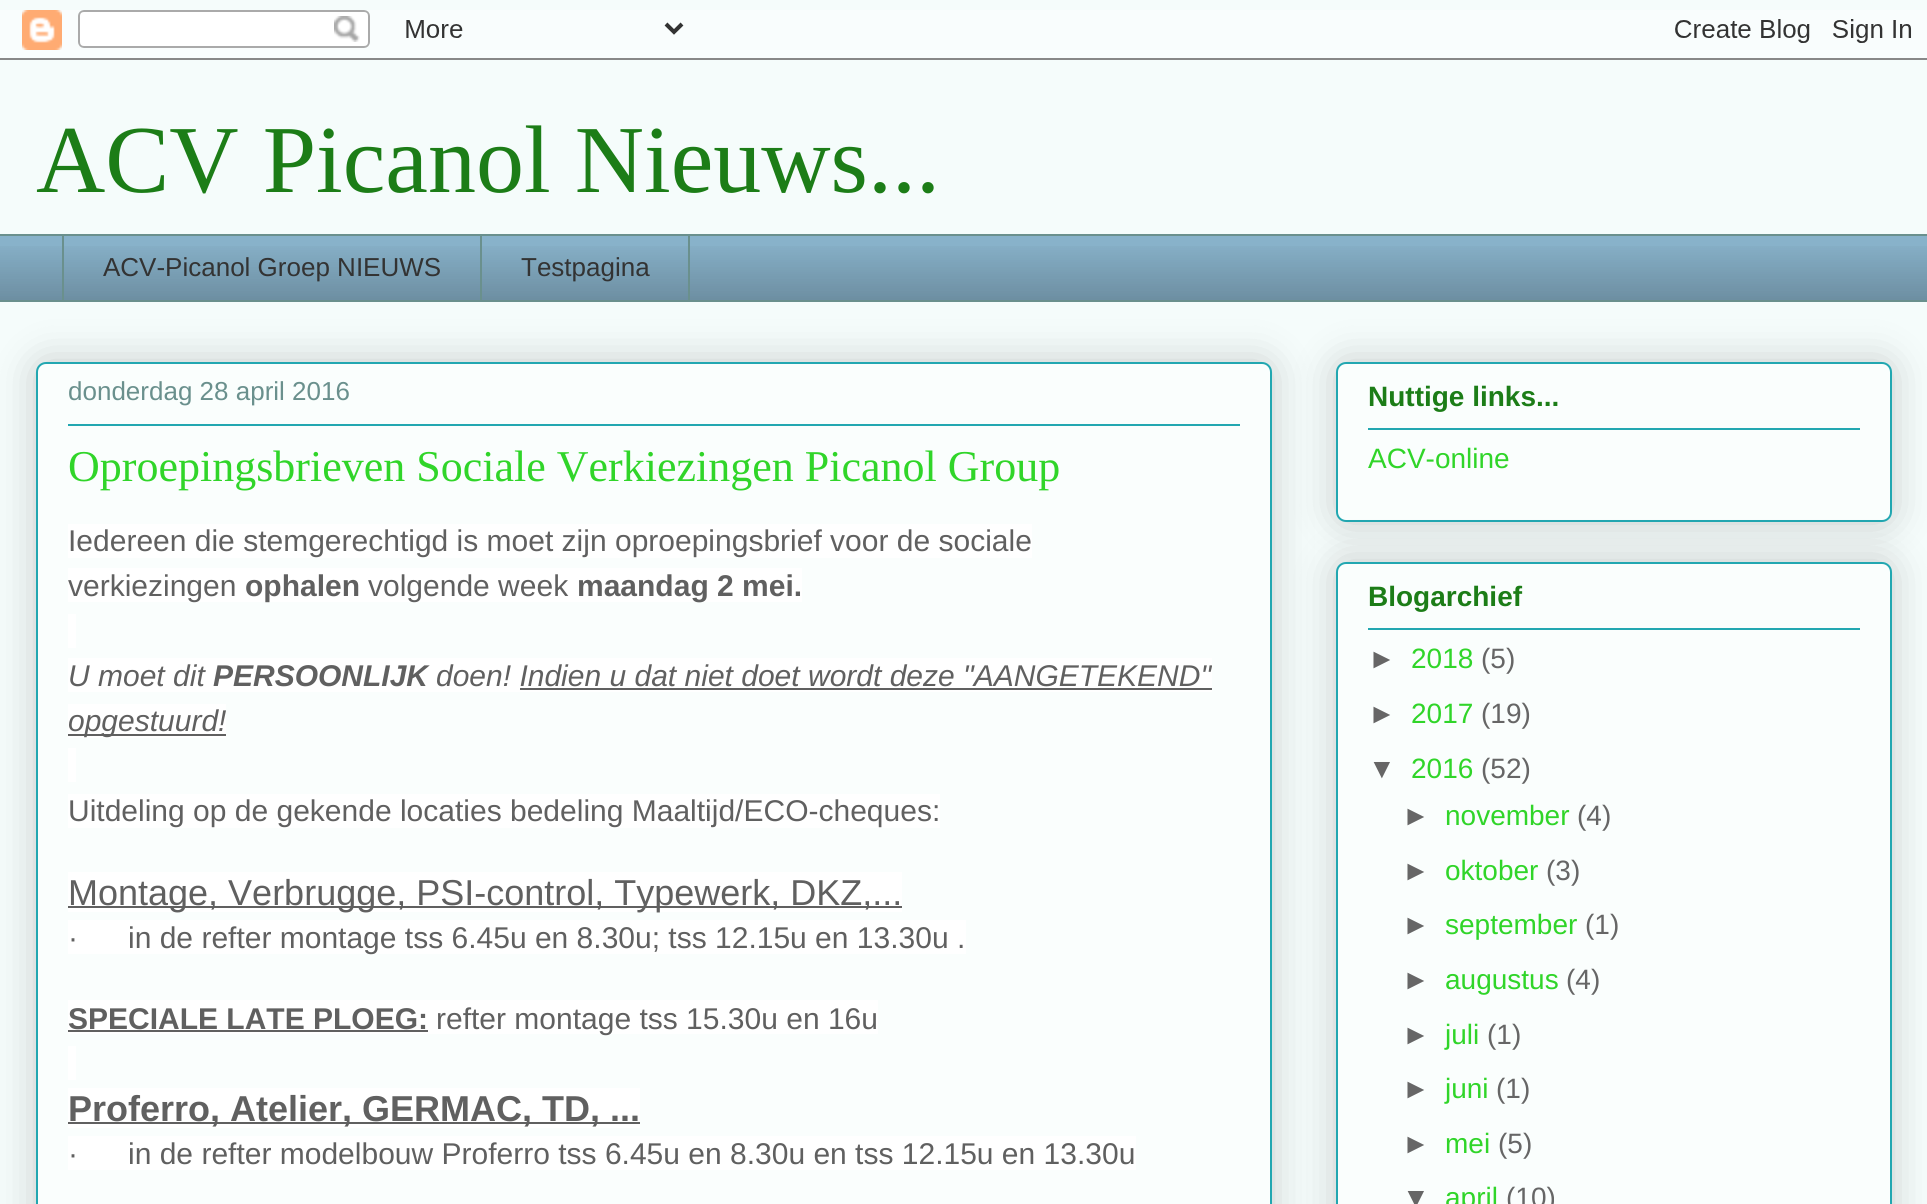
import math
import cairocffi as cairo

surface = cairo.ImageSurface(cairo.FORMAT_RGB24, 1927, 1204)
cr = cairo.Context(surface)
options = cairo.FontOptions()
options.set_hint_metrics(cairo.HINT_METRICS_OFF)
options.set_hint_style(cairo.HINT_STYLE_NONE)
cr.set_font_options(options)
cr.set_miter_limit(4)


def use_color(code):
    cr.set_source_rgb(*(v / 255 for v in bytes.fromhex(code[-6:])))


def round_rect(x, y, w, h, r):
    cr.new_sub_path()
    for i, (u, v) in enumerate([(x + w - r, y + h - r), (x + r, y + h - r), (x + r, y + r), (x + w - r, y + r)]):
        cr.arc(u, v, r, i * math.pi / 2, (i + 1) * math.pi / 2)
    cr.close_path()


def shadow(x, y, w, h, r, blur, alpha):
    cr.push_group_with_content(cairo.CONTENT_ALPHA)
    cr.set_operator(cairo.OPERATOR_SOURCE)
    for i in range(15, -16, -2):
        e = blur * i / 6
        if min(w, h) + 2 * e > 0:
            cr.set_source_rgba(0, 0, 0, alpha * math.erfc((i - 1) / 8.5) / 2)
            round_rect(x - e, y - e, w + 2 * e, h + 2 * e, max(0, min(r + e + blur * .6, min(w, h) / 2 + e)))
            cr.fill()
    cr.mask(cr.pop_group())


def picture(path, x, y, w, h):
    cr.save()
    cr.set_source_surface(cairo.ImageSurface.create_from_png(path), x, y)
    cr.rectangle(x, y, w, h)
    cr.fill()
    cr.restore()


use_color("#f5fcfb")
cr.paint()
picture("img1.png", 0, 10, 1927, 50)
cr.select_font_face("Liberation Serif")
cr.set_font_size(96)
use_color("#1c7d17")
cr.move_to(36, 192)
cr.show_text("ACV Picanol Nieuws...")
use_color("#88b2ca")
cr.rectangle(0, 236, 1927, 64)
cr.fill()
picture("img2.png", 0, 246, 1927, 54)
use_color("#6a908d")
cr.rectangle(0, 234, 1927, 2)
cr.fill()
cr.rectangle(62, 234, 2, 68)
cr.fill()
cr.select_font_face("Liberation Sans")
cr.set_font_size(26)
use_color("#333333")
cr.move_to(103, 276)
cr.show_text("ACV-Picanol Groep NIEUWS")
cr.rectangle(481, 235, 208, 66)
use_color("#6a908d")
cr.stroke()
use_color("#333333")
cr.move_to(521, 276)
cr.show_text("Testpagina")
use_color("#6a908d")
cr.rectangle(0, 300, 1927, 2)
cr.fill()
use_color("#000000")
shadow(36, 362, 1236, 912, 10, 20, 0.2)
use_color("#fafefd")
round_rect(37, 363, 1234, 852, 9)
cr.fill_preserve()
use_color("#22a7b1")
cr.stroke()
use_color("#6a908d")
cr.move_to(68, 400)
cr.show_text("donderdag 28 april 2016")
use_color("#22a7b1")
cr.rectangle(68, 424, 1172, 2)
cr.fill()
cr.select_font_face("Liberation Serif")
cr.set_font_size(44)
use_color("#30d529")
cr.move_to(68, 481)
cr.show_text("Oproepingsbrieven Sociale Verkiezingen Picanol Group")
use_color("#ffffff")
cr.rectangle(68, 524, 964, 34)
cr.fill()
cr.select_font_face("Liberation Sans")
cr.set_font_size(30)
use_color("#606060")
cr.move_to(68, 551)
cr.show_text("Iedereen die stemgerechtigd is moet zijn oproepingsbrief voor de sociale")
use_color("#ffffff")
cr.rectangle(68, 568, 734, 34)
cr.fill()
use_color("#606060")
cr.move_to(68, 596)
cr.show_text("verkiezingen")
cr.select_font_face("Liberation Sans", cairo.FONT_SLANT_NORMAL, cairo.FONT_WEIGHT_BOLD)
cr.move_to(245, 596)
cr.show_text("ophalen")
cr.select_font_face("Liberation Sans")
cr.move_to(368, 596)
cr.show_text("volgende week")
cr.select_font_face("Liberation Sans", cairo.FONT_SLANT_NORMAL, cairo.FONT_WEIGHT_BOLD)
cr.move_to(577, 596)
cr.show_text("maandag 2 mei.")
use_color("#ffffff")
cr.rectangle(68, 614, 8, 34)
cr.fill()
cr.rectangle(68, 658, 1144, 34)
cr.fill()
cr.select_font_face("Liberation Sans", cairo.FONT_SLANT_ITALIC)
use_color("#606060")
cr.move_to(68, 686)
cr.show_text("U moet dit")
cr.select_font_face("Liberation Sans", cairo.FONT_SLANT_ITALIC, cairo.FONT_WEIGHT_BOLD)
cr.move_to(213, 686)
cr.show_text("PERSOONLIJK")
cr.select_font_face("Liberation Sans", cairo.FONT_SLANT_ITALIC)
cr.move_to(436, 686)
cr.show_text("doen! Indien u dat niet doet wordt deze \"AANGETEKEND\"")
cr.rectangle(520, 688, 692, 2)
cr.fill()
use_color("#ffffff")
cr.rectangle(68, 704, 158, 34)
cr.fill()
use_color("#606060")
cr.rectangle(68, 734, 158, 2)
cr.fill()
cr.move_to(68, 731)
cr.show_text("opgestuurd!")
use_color("#ffffff")
cr.rectangle(68, 748, 8, 34)
cr.fill()
cr.rectangle(68, 794, 872, 34)
cr.fill()
cr.select_font_face("Liberation Sans")
use_color("#606060")
cr.move_to(68, 821)
cr.show_text("Uitdeling op de gekende locaties bedeling Maaltijd/ECO-cheques:")
use_color("#ffffff")
cr.rectangle(68, 872, 834, 40)
cr.fill()
use_color("#606060")
cr.rectangle(68, 906, 834, 2)
cr.fill()
cr.set_font_size(36)
cr.move_to(68, 905)
cr.show_text("Montage, Verbrugge, PSI-control, Typewerk, DKZ,...")
use_color("#ffffff")
cr.rectangle(68, 920, 898, 34)
cr.fill()
cr.set_font_size(30)
use_color("#606060")
cr.move_to(68, 948)
cr.show_text("·      in de refter montage tss 6.45u en 8.30u; tss 12.15u en 13.30u .")
use_color("#ffffff")
cr.rectangle(68, 1000, 810, 34)
cr.fill()
cr.select_font_face("Liberation Sans", cairo.FONT_SLANT_NORMAL, cairo.FONT_WEIGHT_BOLD)
use_color("#606060")
cr.move_to(68, 1029)
cr.show_text("SPECIALE LATE PLOEG:")
cr.rectangle(68, 1030, 360, 2)
cr.fill()
cr.select_font_face("Liberation Sans")
cr.move_to(436, 1029)
cr.show_text("refter montage tss 15.30u en 16u")
use_color("#ffffff")
cr.rectangle(68, 1046, 8, 34)
cr.fill()
cr.rectangle(68, 1088, 572, 40)
cr.fill()
use_color("#606060")
cr.rectangle(68, 1122, 572, 2)
cr.fill()
cr.select_font_face("Liberation Sans", cairo.FONT_SLANT_NORMAL, cairo.FONT_WEIGHT_BOLD)
cr.set_font_size(36)
cr.move_to(68, 1121)
cr.show_text("Proferro, Atelier, GERMAC, TD, ...")
use_color("#ffffff")
cr.rectangle(68, 1136, 1068, 34)
cr.fill()
cr.select_font_face("Liberation Sans")
cr.set_font_size(30)
use_color("#606060")
cr.move_to(68, 1164)
cr.show_text("·      in de refter modelbouw Proferro tss 6.45u en 8.30u en tss 12.15u en 13.30u")
use_color("#000000")
shadow(1336, 362, 556, 160, 10, 20, 0.2)
use_color("#fafefd")
round_rect(1337, 363, 554, 158, 9)
cr.fill_preserve()
use_color("#22a7b1")
cr.stroke()
cr.select_font_face("Liberation Sans", cairo.FONT_SLANT_NORMAL, cairo.FONT_WEIGHT_BOLD)
cr.set_font_size(28)
use_color("#1c7d17")
cr.move_to(1368, 406)
cr.show_text("Nuttige links...")
use_color("#22a7b1")
cr.rectangle(1368, 428, 492, 2)
cr.fill()
cr.select_font_face("Liberation Sans")
use_color("#30d529")
cr.move_to(1368, 468)
cr.show_text("ACV-online")
use_color("#000000")
shadow(1336, 562, 556, 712, 10, 20, 0.2)
use_color("#fafefd")
round_rect(1337, 563, 554, 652, 9)
cr.fill_preserve()
use_color("#22a7b1")
cr.stroke()
cr.select_font_face("Liberation Sans", cairo.FONT_SLANT_NORMAL, cairo.FONT_WEIGHT_BOLD)
use_color("#1c7d17")
cr.move_to(1368, 606)
cr.show_text("Blogarchief")
use_color("#22a7b1")
cr.rectangle(1368, 628, 492, 2)
cr.fill()
cr.select_font_face("Liberation Sans")
use_color("#666666")
cr.move_to(1368, 668)
cr.show_text("►")
use_color("#30d529")
cr.move_to(1411, 668)
cr.show_text("2018")
use_color("#666666")
cr.move_to(1481, 668)
cr.show_text("(5)")
cr.move_to(1368, 723)
cr.show_text("►")
use_color("#30d529")
cr.move_to(1411, 723)
cr.show_text("2017")
use_color("#666666")
cr.move_to(1481, 723)
cr.show_text("(19)")
cr.move_to(1368, 778)
cr.show_text("▼")
use_color("#30d529")
cr.move_to(1411, 778)
cr.show_text("2016")
use_color("#666666")
cr.move_to(1481, 778)
cr.show_text("(52)")
cr.move_to(1402, 825)
cr.show_text("►")
use_color("#30d529")
cr.move_to(1445, 825)
cr.show_text("november")
use_color("#666666")
cr.move_to(1577, 825)
cr.show_text("(4)")
cr.move_to(1402, 880)
cr.show_text("►")
use_color("#30d529")
cr.move_to(1445, 880)
cr.show_text("oktober")
use_color("#666666")
cr.move_to(1546, 880)
cr.show_text("(3)")
cr.move_to(1402, 934)
cr.show_text("►")
use_color("#30d529")
cr.move_to(1445, 934)
cr.show_text("september")
use_color("#666666")
cr.move_to(1585, 934)
cr.show_text("(1)")
cr.move_to(1402, 989)
cr.show_text("►")
use_color("#30d529")
cr.move_to(1445, 989)
cr.show_text("augustus")
use_color("#666666")
cr.move_to(1566, 989)
cr.show_text("(4)")
cr.move_to(1402, 1044)
cr.show_text("►")
use_color("#30d529")
cr.move_to(1445, 1044)
cr.show_text("juli")
use_color("#666666")
cr.move_to(1487, 1044)
cr.show_text("(1)")
cr.move_to(1402, 1098)
cr.show_text("►")
use_color("#30d529")
cr.move_to(1445, 1098)
cr.show_text("juni")
use_color("#666666")
cr.move_to(1496, 1098)
cr.show_text("(1)")
cr.move_to(1402, 1153)
cr.show_text("►")
use_color("#30d529")
cr.move_to(1445, 1153)
cr.show_text("mei")
use_color("#666666")
cr.move_to(1498, 1153)
cr.show_text("(5)")
cr.move_to(1402, 1207)
cr.show_text("▼")
use_color("#30d529")
cr.move_to(1445, 1207)
cr.show_text("april")
use_color("#666666")
cr.move_to(1506, 1207)
cr.show_text("(10)")
surface.write_to_png("result.png")
